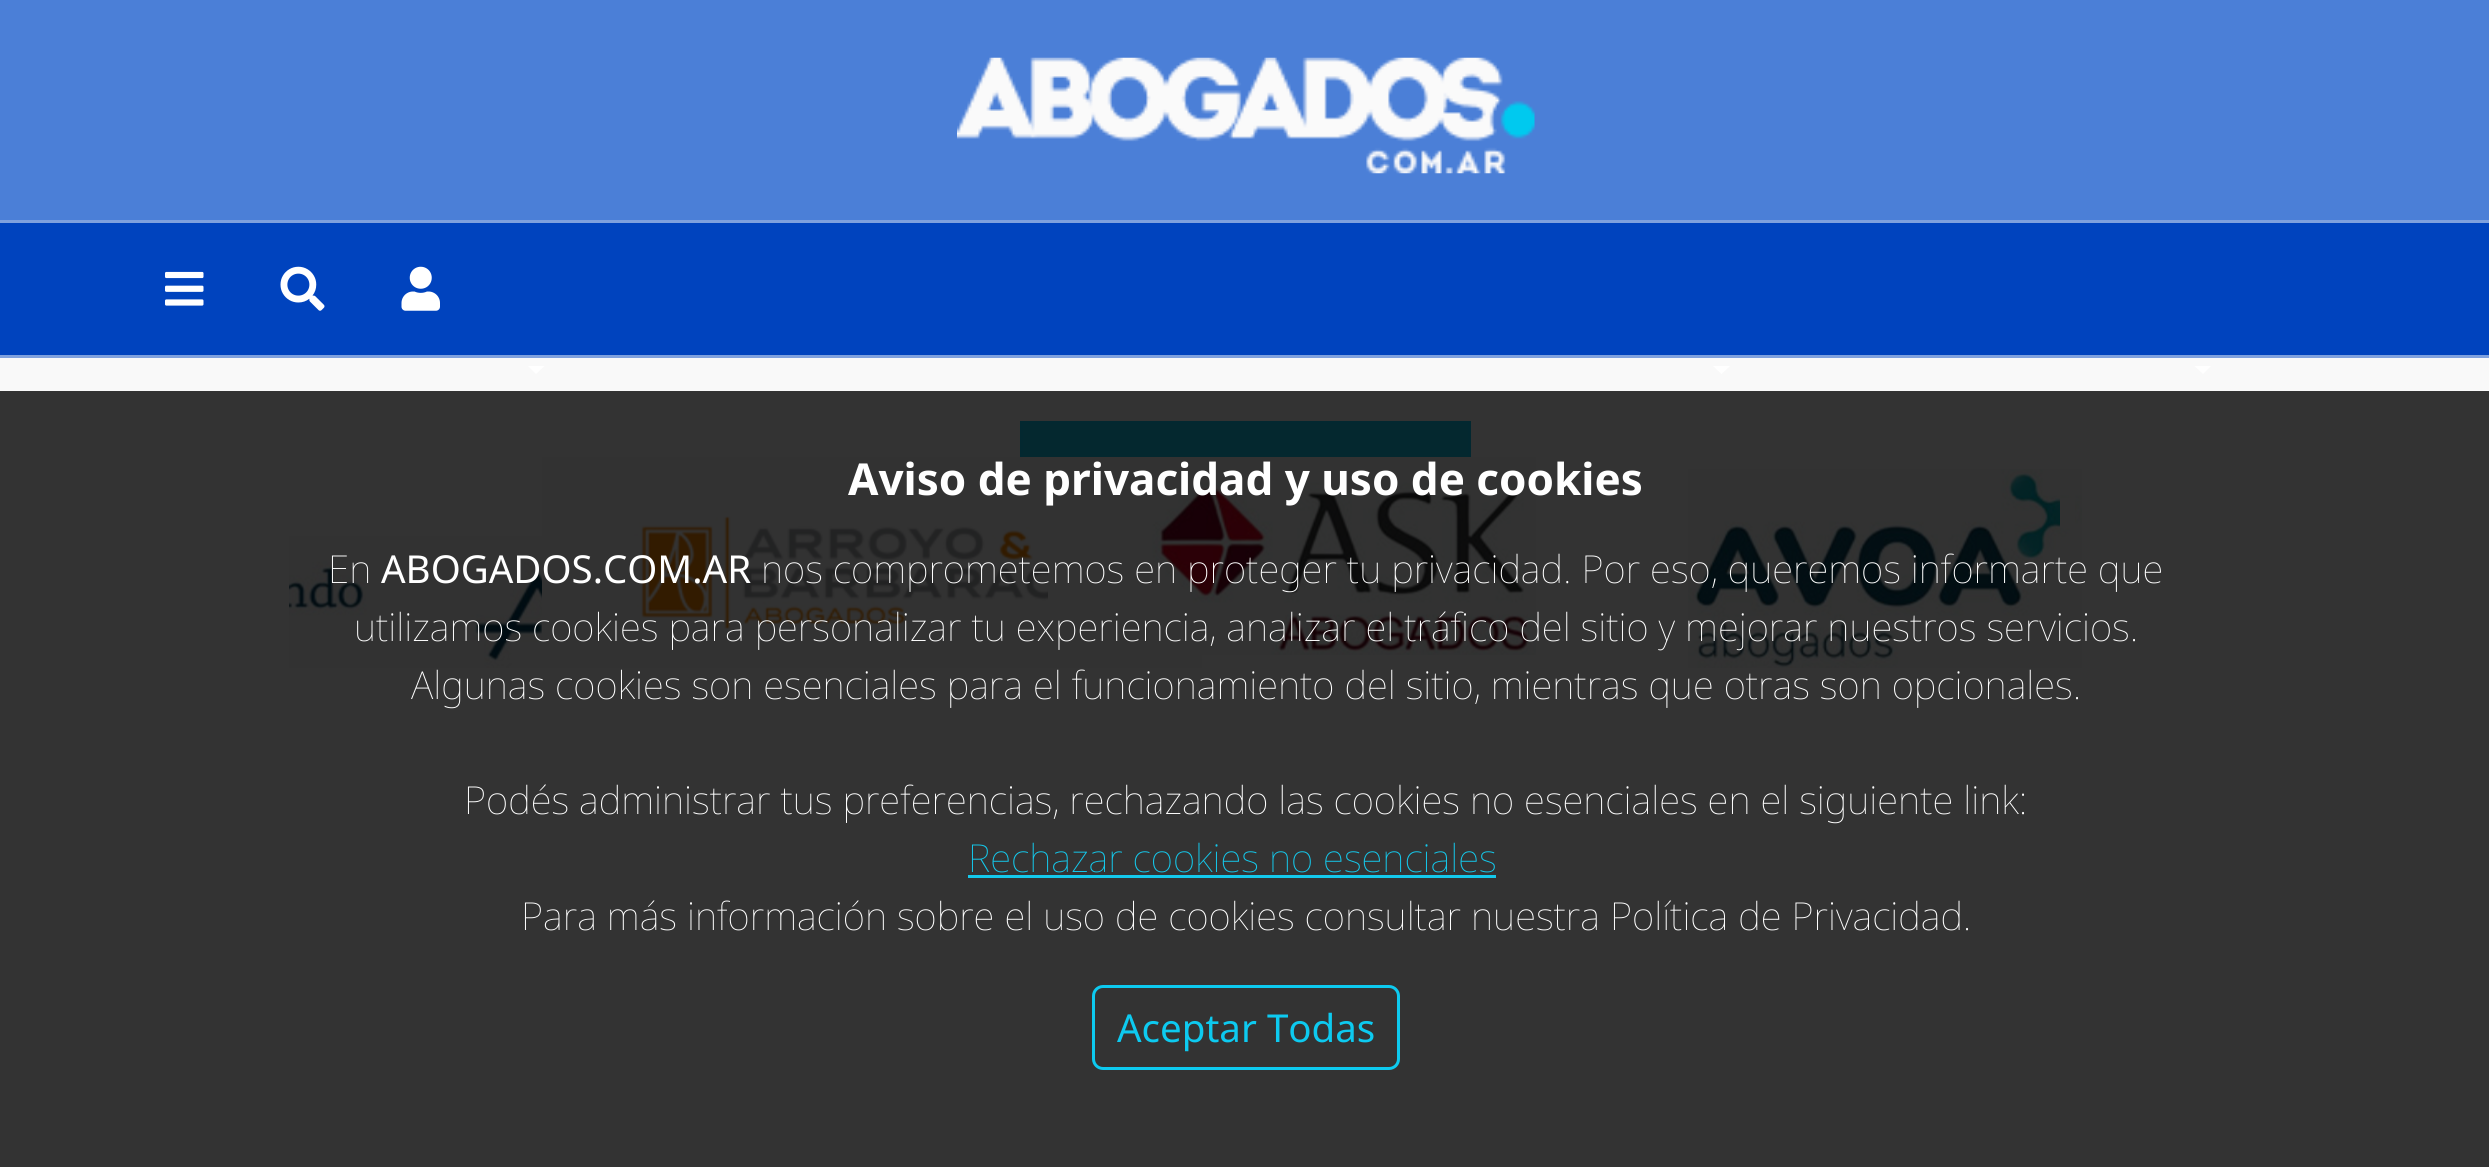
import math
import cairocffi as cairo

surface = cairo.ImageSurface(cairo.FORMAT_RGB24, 2489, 1167)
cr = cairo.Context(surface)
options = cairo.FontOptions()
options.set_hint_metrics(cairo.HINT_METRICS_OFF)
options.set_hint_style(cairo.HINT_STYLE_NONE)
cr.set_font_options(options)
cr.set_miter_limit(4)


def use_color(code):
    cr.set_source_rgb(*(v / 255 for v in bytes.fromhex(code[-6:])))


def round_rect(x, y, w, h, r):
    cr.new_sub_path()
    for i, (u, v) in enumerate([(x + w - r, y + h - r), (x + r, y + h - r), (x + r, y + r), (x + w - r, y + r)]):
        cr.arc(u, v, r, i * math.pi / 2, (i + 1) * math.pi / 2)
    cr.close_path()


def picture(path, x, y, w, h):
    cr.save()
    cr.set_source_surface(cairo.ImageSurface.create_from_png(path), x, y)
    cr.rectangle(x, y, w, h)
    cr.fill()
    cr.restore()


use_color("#333333")
cr.paint()
use_color("#4b7fd7")
cr.rectangle(0, 0, 2489, 220)
cr.fill()
picture("img1.png", 957, 57, 578, 117)
use_color("#0043be")
cr.rectangle(0, 223, 2489, 132)
cr.fill()
use_color("#7fa1de")
cr.rectangle(0, 220, 2489, 3)
cr.fill()
cr.rectangle(0, 355, 2489, 3)
cr.fill()
picture("img2.png", 165, 271, 39, 35)
picture("img3.png", 280, 266, 45, 45)
picture("img4.png", 401, 266, 39, 45)
use_color("#f9f9f9")
cr.rectangle(0, 358, 2489, 33)
cr.fill()
use_color("#ffffff")
cr.new_path()
cr.move_to(528, 366)
cr.line_to(544.5, 366)
cr.line_to(536, 374)
cr.close_path()
cr.fill()
cr.new_path()
cr.move_to(1713, 366)
cr.line_to(1730, 366)
cr.line_to(1721.5, 374)
cr.close_path()
cr.fill()
cr.new_path()
cr.move_to(2194.5, 366)
cr.line_to(2211, 366)
cr.line_to(2203, 374)
cr.close_path()
cr.fill()
use_color("#04282f")
cr.rectangle(1023, 424, 445, 33)
cr.fill()
cr.rectangle(1021.5, 422.5, 448, 132)
use_color("#032830")
cr.set_line_width(3)
cr.stroke()
picture("img5.png", 165, 605, 38, 33)
picture("img6.png", 281, 602, 8, 31)
picture("img7.png", 542, 457, 660, 211)
picture("img8.png", 1048, 457, 488, 198)
picture("img9.png", 1688, 469, 394, 199)
use_color("#323232")
cr.rectangle(2060, 498, 15, 30)
cr.fill()
picture("img10.png", 289, 536, 253, 132)
cr.select_font_face("Noto Sans", cairo.FONT_SLANT_NORMAL, cairo.FONT_WEIGHT_BOLD)
cr.set_font_size(44)
use_color("#ffffff")
cr.move_to(848, 495)
cr.show_text("Aviso de privacidad y uso de cookies")
cr.select_font_face("Noto Sans Thin")
cr.set_font_size(38.5)
cr.move_to(328, 583)
cr.show_text("En")
cr.select_font_face("Noto Sans")
cr.move_to(381, 583)
cr.show_text("ABOGADOS.COM.AR")
cr.select_font_face("Noto Sans Thin")
cr.move_to(761, 583)
cr.show_text("nos comprometemos en proteger tu privacidad. Por eso, queremos informarte que")
cr.move_to(354, 641)
cr.show_text("utilizamos cookies para personalizar tu experiencia, analizar el tráfico del sitio y mejorar nuestros servicios.")
cr.move_to(411, 699)
cr.show_text("Algunas cookies son esenciales para el funcionamiento del sitio, mientras que otras son opcionales.")
cr.move_to(464, 814)
cr.show_text("Podés administrar tus preferencias, rechazando las cookies no esenciales en el siguiente link:")
use_color("#14c9ec")
cr.move_to(968, 872)
cr.show_text("Rechazar cookies no esenciales")
cr.rectangle(968, 875, 528, 3)
cr.fill()
use_color("#ffffff")
cr.move_to(521, 930)
cr.show_text("Para más información sobre el uso de cookies consultar nuestra Política de Privacidad.")
round_rect(1093.5, 986.5, 305, 82, 9.5)
use_color("#0dcaf0")
cr.stroke()
cr.select_font_face("Noto Sans")
cr.move_to(1117, 1042)
cr.show_text("Aceptar Todas")
surface.write_to_png("result.png")
